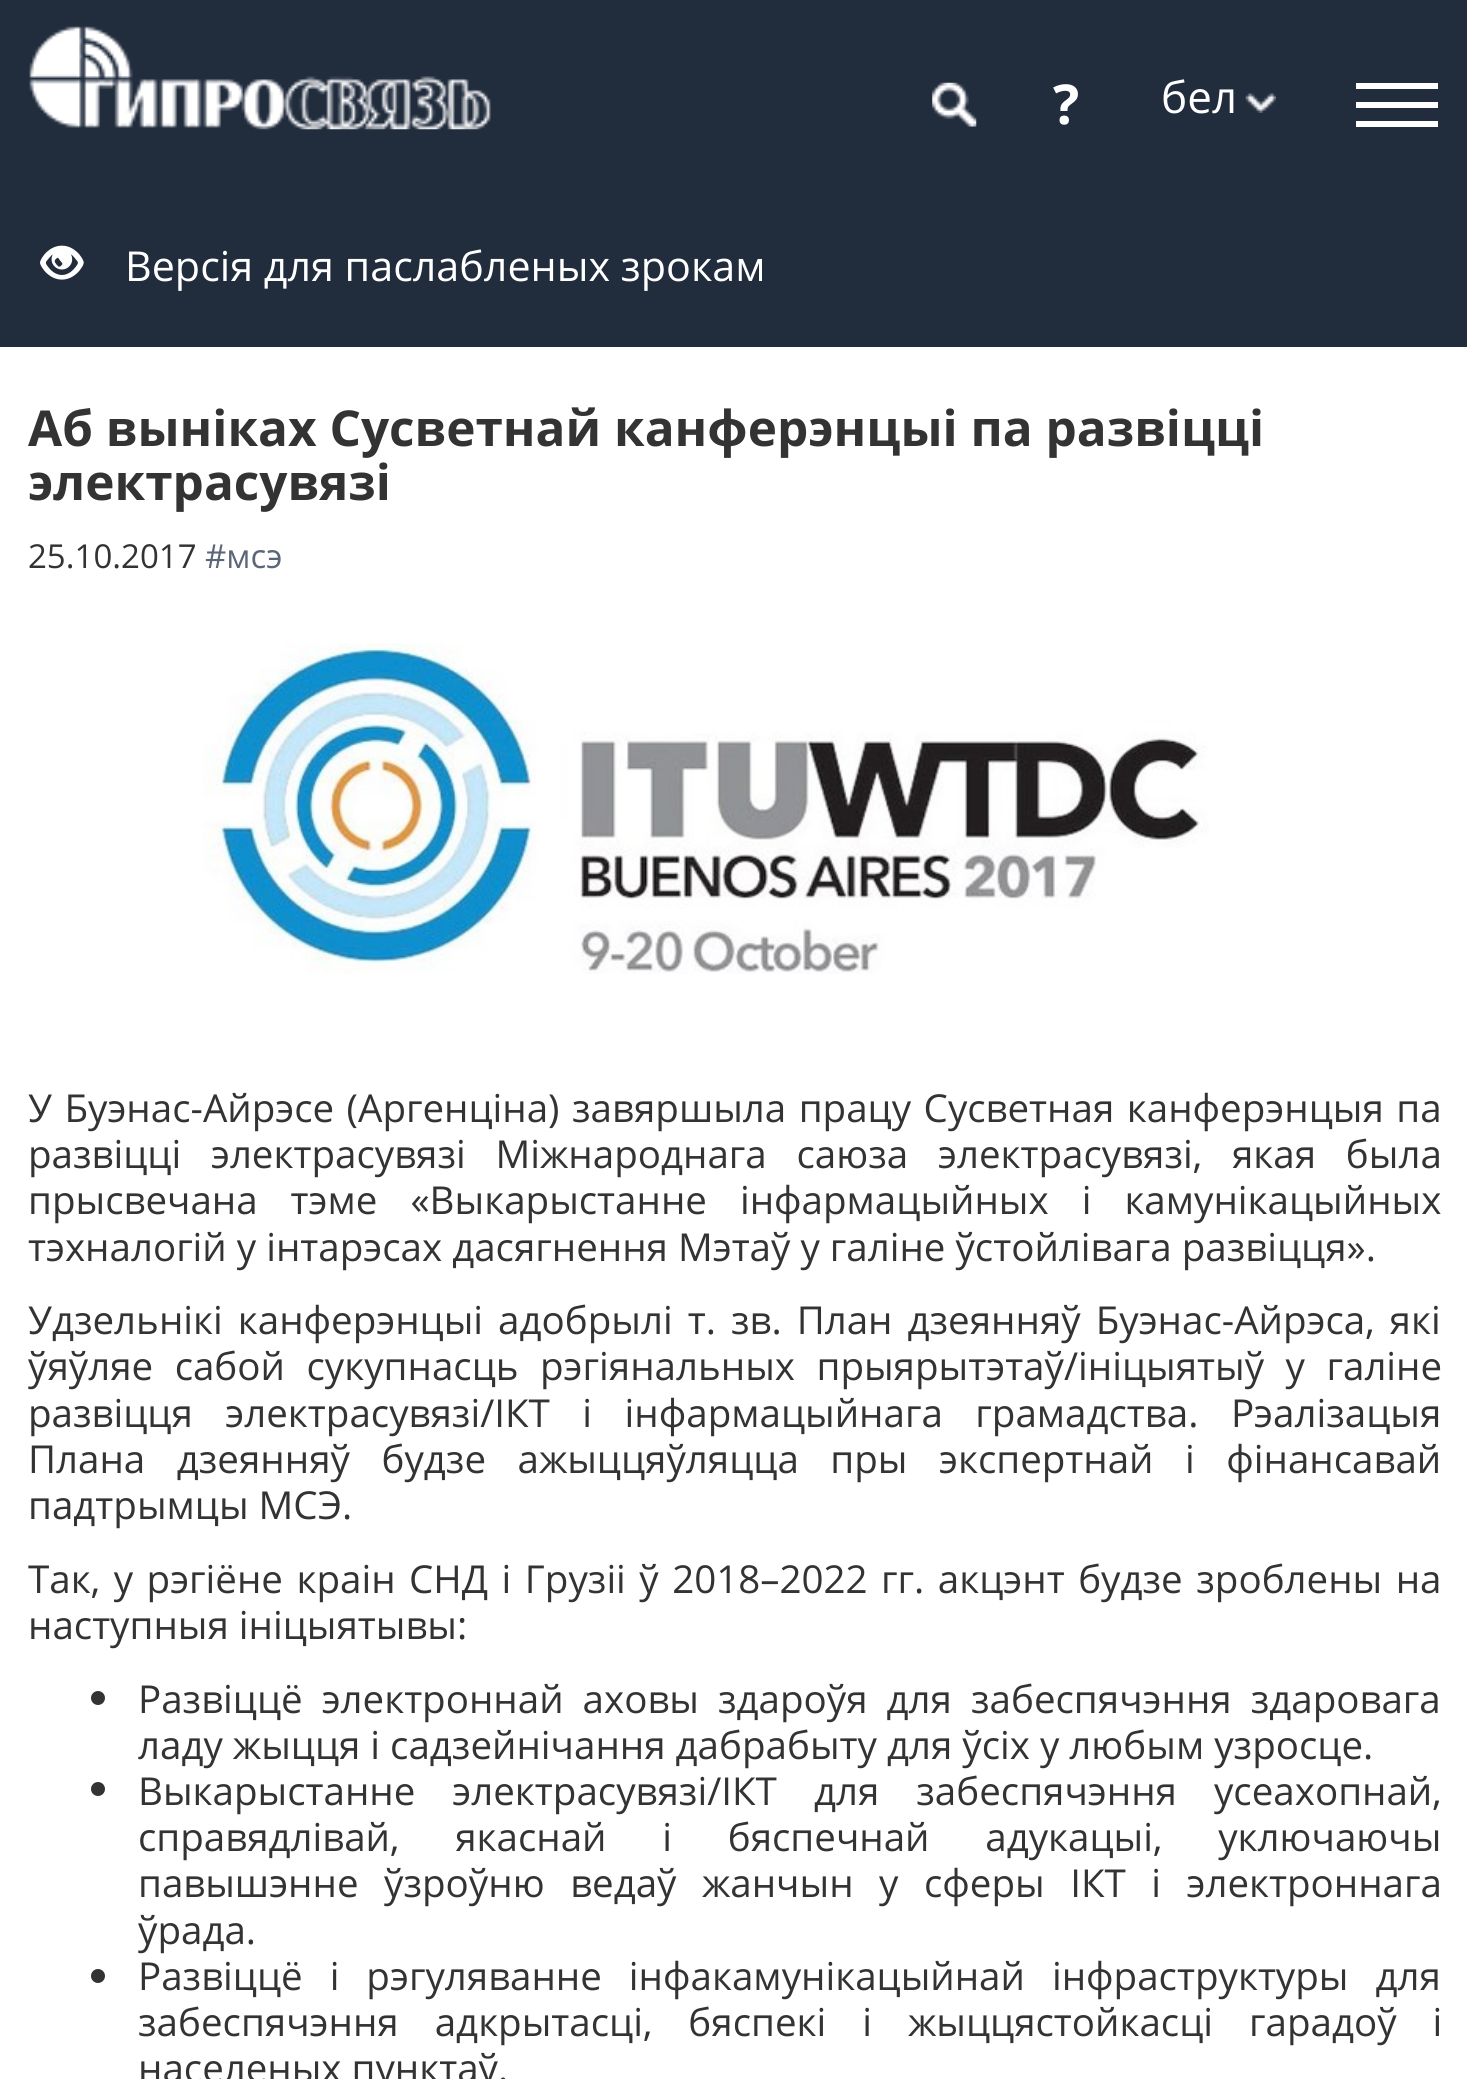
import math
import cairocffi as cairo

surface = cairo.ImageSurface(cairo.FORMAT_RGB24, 1467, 2079)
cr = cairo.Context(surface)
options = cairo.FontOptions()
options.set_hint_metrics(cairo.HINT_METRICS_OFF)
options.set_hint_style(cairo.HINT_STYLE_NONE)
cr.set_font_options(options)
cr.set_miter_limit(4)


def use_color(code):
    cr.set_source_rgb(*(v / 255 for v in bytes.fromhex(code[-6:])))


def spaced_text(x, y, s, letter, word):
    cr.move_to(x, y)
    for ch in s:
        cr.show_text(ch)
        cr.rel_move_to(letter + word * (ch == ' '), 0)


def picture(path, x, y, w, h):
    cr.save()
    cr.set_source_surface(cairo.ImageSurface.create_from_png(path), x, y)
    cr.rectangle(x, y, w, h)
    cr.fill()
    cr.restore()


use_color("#ffffff")
cr.paint()
use_color("#212c3d")
cr.rectangle(0, 0, 1467, 347)
cr.fill()
picture("img1.png", 29, 26, 462, 104)
picture("img2.png", 932, 82, 45, 45)
cr.select_font_face("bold", cairo.FONT_SLANT_NORMAL, cairo.FONT_WEIGHT_BOLD)
cr.set_font_size(55)
use_color("#ffffff")
cr.move_to(1053, 124)
cr.show_text("?")
cr.select_font_face("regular")
cr.set_font_size(44)
cr.move_to(1161, 113)
cr.show_text("бел")
picture("img3.png", 1245, 93, 31, 20)
cr.rectangle(1356, 83, 82, 6)
cr.fill()
cr.rectangle(1356, 102, 82, 6)
cr.fill()
cr.rectangle(1356, 121, 82, 6)
cr.fill()
picture("img4.png", 40, 245, 44, 35)
cr.set_font_size(41.25)
cr.move_to(125, 281)
cr.show_text("Версія для паслабленых зрокам")
cr.select_font_face("bold", cairo.FONT_SLANT_NORMAL, cairo.FONT_WEIGHT_BOLD)
cr.set_font_size(49.5)
use_color("#333333")
cr.move_to(28, 446)
cr.show_text("Аб выніках Сусветнай канферэнцыі па развіцці")
cr.move_to(28, 500)
cr.show_text("электрасувязі")
cr.select_font_face("regular")
cr.set_font_size(33)
cr.move_to(28, 568)
cr.show_text("25.10.2017")
use_color("#5b6678")
cr.move_to(205, 568)
cr.show_text("#мсэ")
picture("img5.png", 203, 643, 1006, 331)
cr.set_font_size(38.5)
use_color("#333333")
spaced_text(28, 1122, "У Буэнас-Айрэсе (Аргенціна) завяршыла працу Сусветная канферэнцыя па", 0, 2.5)
spaced_text(28, 1168, "развіцці электрасувязі Міжнароднага саюза электрасувязі, якая была", 0, 19.75)
spaced_text(28, 1214, "прысвечана тэме «Выкарыстанне інфармацыйных і камунікацыйных", 0, 23)
cr.move_to(28, 1261)
cr.show_text("тэхналогій у інтарэсах дасягнення Мэтаў у галіне ўстойлівага развіцця».")
spaced_text(28, 1334, "Удзельнікі канферэнцыі адобрылі т. зв. План дзеянняў Буэнас-Айрэса, які", 0, 5)
spaced_text(28, 1380, "ўяўляе сабой сукупнасць рэгіянальных прыярытэтаў/ініцыятыў у галіне", 0, 11.5)
spaced_text(28, 1427, "развіцця электрасувязі/ІКТ і інфармацыйнага грамадства. Рэалізацыя", 0, 22.5)
spaced_text(28, 1473, "Плана дзеянняў будзе ажыццяўляцца пры экспертнай і фінансавай", 0, 21.5)
cr.move_to(28, 1519)
cr.show_text("падтрымцы МСЭ.")
spaced_text(28, 1593, "Так, у рэгіёне краін СНД і Грузіі ў 2018–2022 гг. акцэнт будзе зроблены на", 0, 3.5)
cr.move_to(28, 1639)
cr.show_text("наступныя ініцыятывы:")
cr.new_path()
cr.arc(98, 1698, 7, 0, 2 * math.pi)
cr.fill()
spaced_text(138, 1713, "Развіццё электроннай аховы здароўя для забеспячэння здаровага", 0, 9)
cr.move_to(138, 1759)
cr.show_text("ладу жыцця і садзейнічання дабрабыту для ўсіх у любым узросце.")
cr.new_path()
cr.arc(98, 1789, 7, 0, 2 * math.pi)
cr.fill()
spaced_text(138, 1805, "Выкарыстанне электрасувязі/ІКТ для забеспячэння усеахопнай,", 0, 27)
spaced_text(138, 1851, "справядлівай, якаснай і бяспечнай адукацыі, уключаючы", 0, 45.75)
spaced_text(138, 1897, "павышэнне ўзроўню ведаў жанчын у сферы ІКТ і электроннага", 0, 15.5)
cr.move_to(138, 1944)
cr.show_text("ўрада.")
cr.new_path()
cr.arc(98, 1976, 7, 0, 2 * math.pi)
cr.fill()
spaced_text(138, 1990, "Развіццё і рэгуляванне інфакамунікацыйнай інфраструктуры для", 0, 17)
spaced_text(138, 2036, "забеспячэння адкрытасці, бяспекі і жыццястойкасці гарадоў і", 0, 26)
cr.move_to(138, 2082)
cr.show_text("населеных пунктаў.")
surface.write_to_png("result.png")
